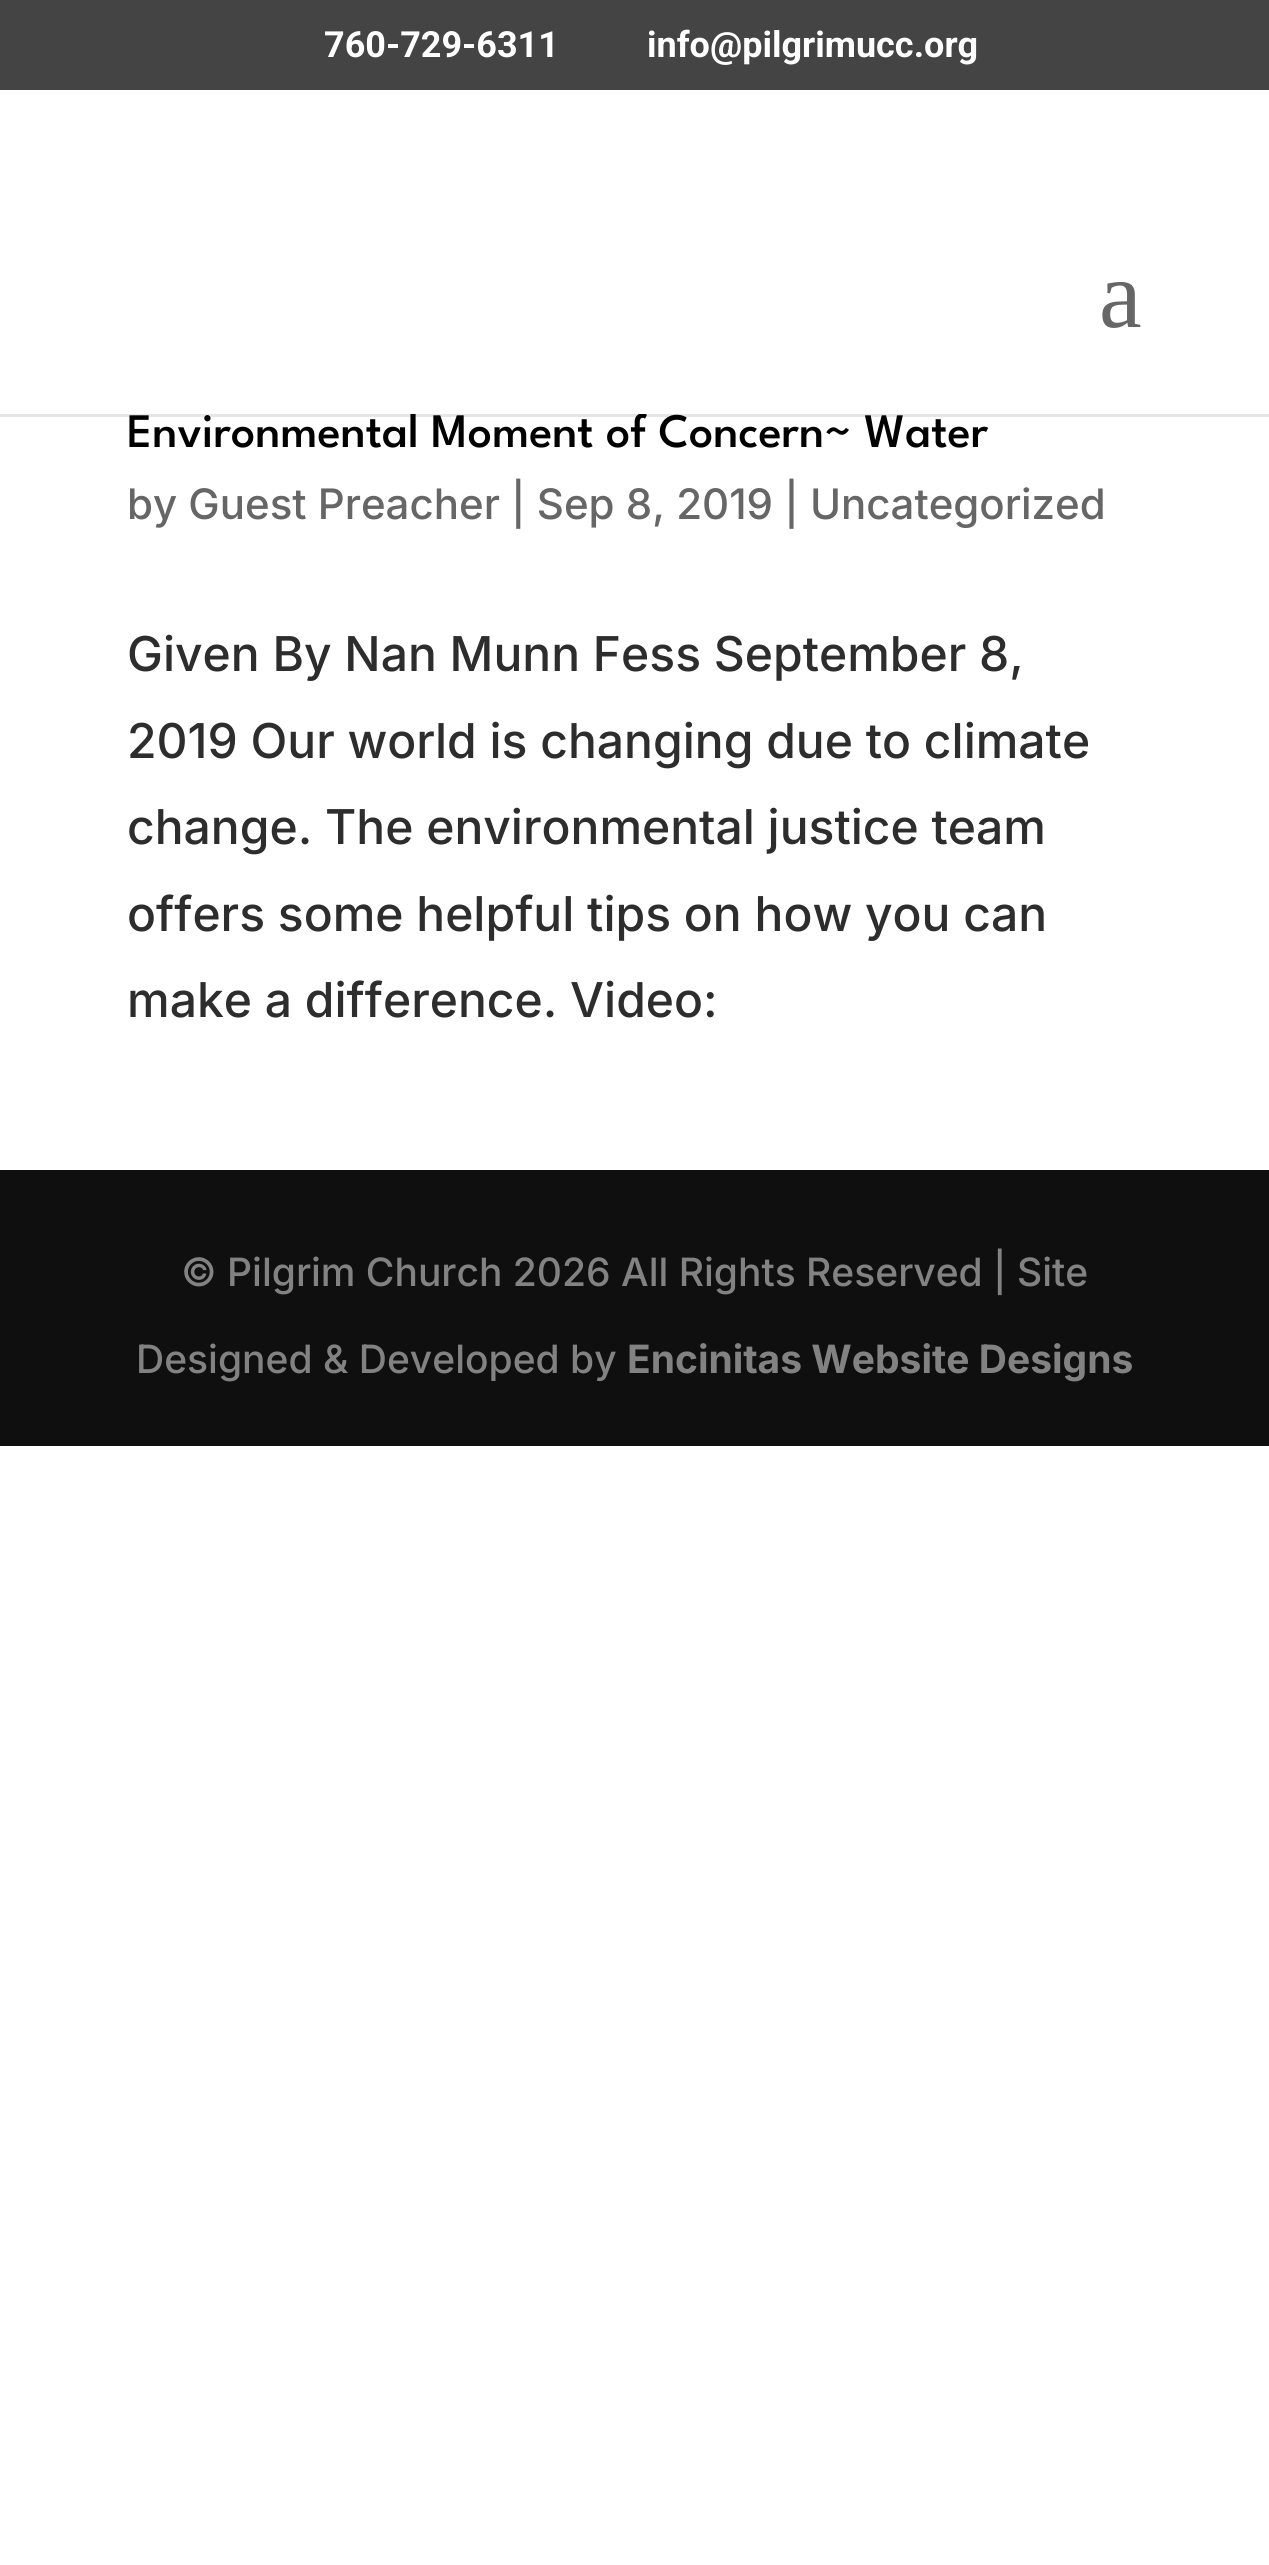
import math
import cairocffi as cairo

surface = cairo.ImageSurface(cairo.FORMAT_RGB24, 1269, 2565)
cr = cairo.Context(surface)
options = cairo.FontOptions()
options.set_hint_metrics(cairo.HINT_METRICS_OFF)
options.set_hint_style(cairo.HINT_STYLE_NONE)
cr.set_font_options(options)
cr.set_miter_limit(4)


def use_color(code):
    cr.set_source_rgb(*(v / 255 for v in bytes.fromhex(code[-6:])))


use_color("#ffffff")
cr.paint()
use_color("#444444")
cr.rectangle(0, 0, 1269, 90)
cr.fill()
cr.select_font_face("Roboto", cairo.FONT_SLANT_NORMAL, cairo.FONT_WEIGHT_BOLD)
cr.set_font_size(36)
use_color("#ffffff")
cr.move_to(324, 57)
cr.show_text("760-729-6311")
cr.move_to(647, 57)
cr.show_text("info@pilgrimucc.org")
cr.set_source_rgba(0, 0, 0, 0.1)
cr.rectangle(0, 414, 1269, 3)
cr.fill()
cr.select_font_face("League Spartan Medium")
cr.set_font_size(48)
use_color("#000000")
cr.move_to(127, 447)
cr.show_text("Environmental Moment of Concern~ Water")
use_color("#ffffff")
cr.rectangle(639, 413, 7, 1)
cr.fill()
cr.select_font_face("Liberation Serif")
cr.set_font_size(96)
use_color("#666666")
cr.move_to(1099, 327)
cr.show_text("a")
cr.select_font_face("Inter Medium")
cr.set_font_size(42)
cr.move_to(127, 519)
cr.show_text("by Guest Preacher | Sep 8, 2019 | Uncategorized")
cr.set_font_size(48)
use_color("#2d2d2d")
cr.move_to(127, 671)
cr.show_text("Given By Nan Munn Fess September 8,")
cr.move_to(127, 758)
cr.show_text("2019 Our world is changing due to climate")
cr.move_to(127, 844)
cr.show_text("change. The environmental justice team")
cr.move_to(127, 931)
cr.show_text("offers some helpful tips on how you can")
cr.move_to(127, 1017)
cr.show_text("make a difference. Video:")
use_color("#0f0f0f")
cr.rectangle(0, 1170, 1269, 276)
cr.fill()
cr.set_font_size(39)
use_color("#828282")
cr.move_to(181, 1286)
cr.show_text("© Pilgrim Church 2026 All Rights Reserved | Site")
cr.move_to(136, 1373)
cr.show_text("Designed & Developed by")
cr.select_font_face("Inter", cairo.FONT_SLANT_NORMAL, cairo.FONT_WEIGHT_BOLD)
cr.move_to(627, 1373)
cr.show_text("Encinitas Website Designs")
surface.write_to_png("result.png")
